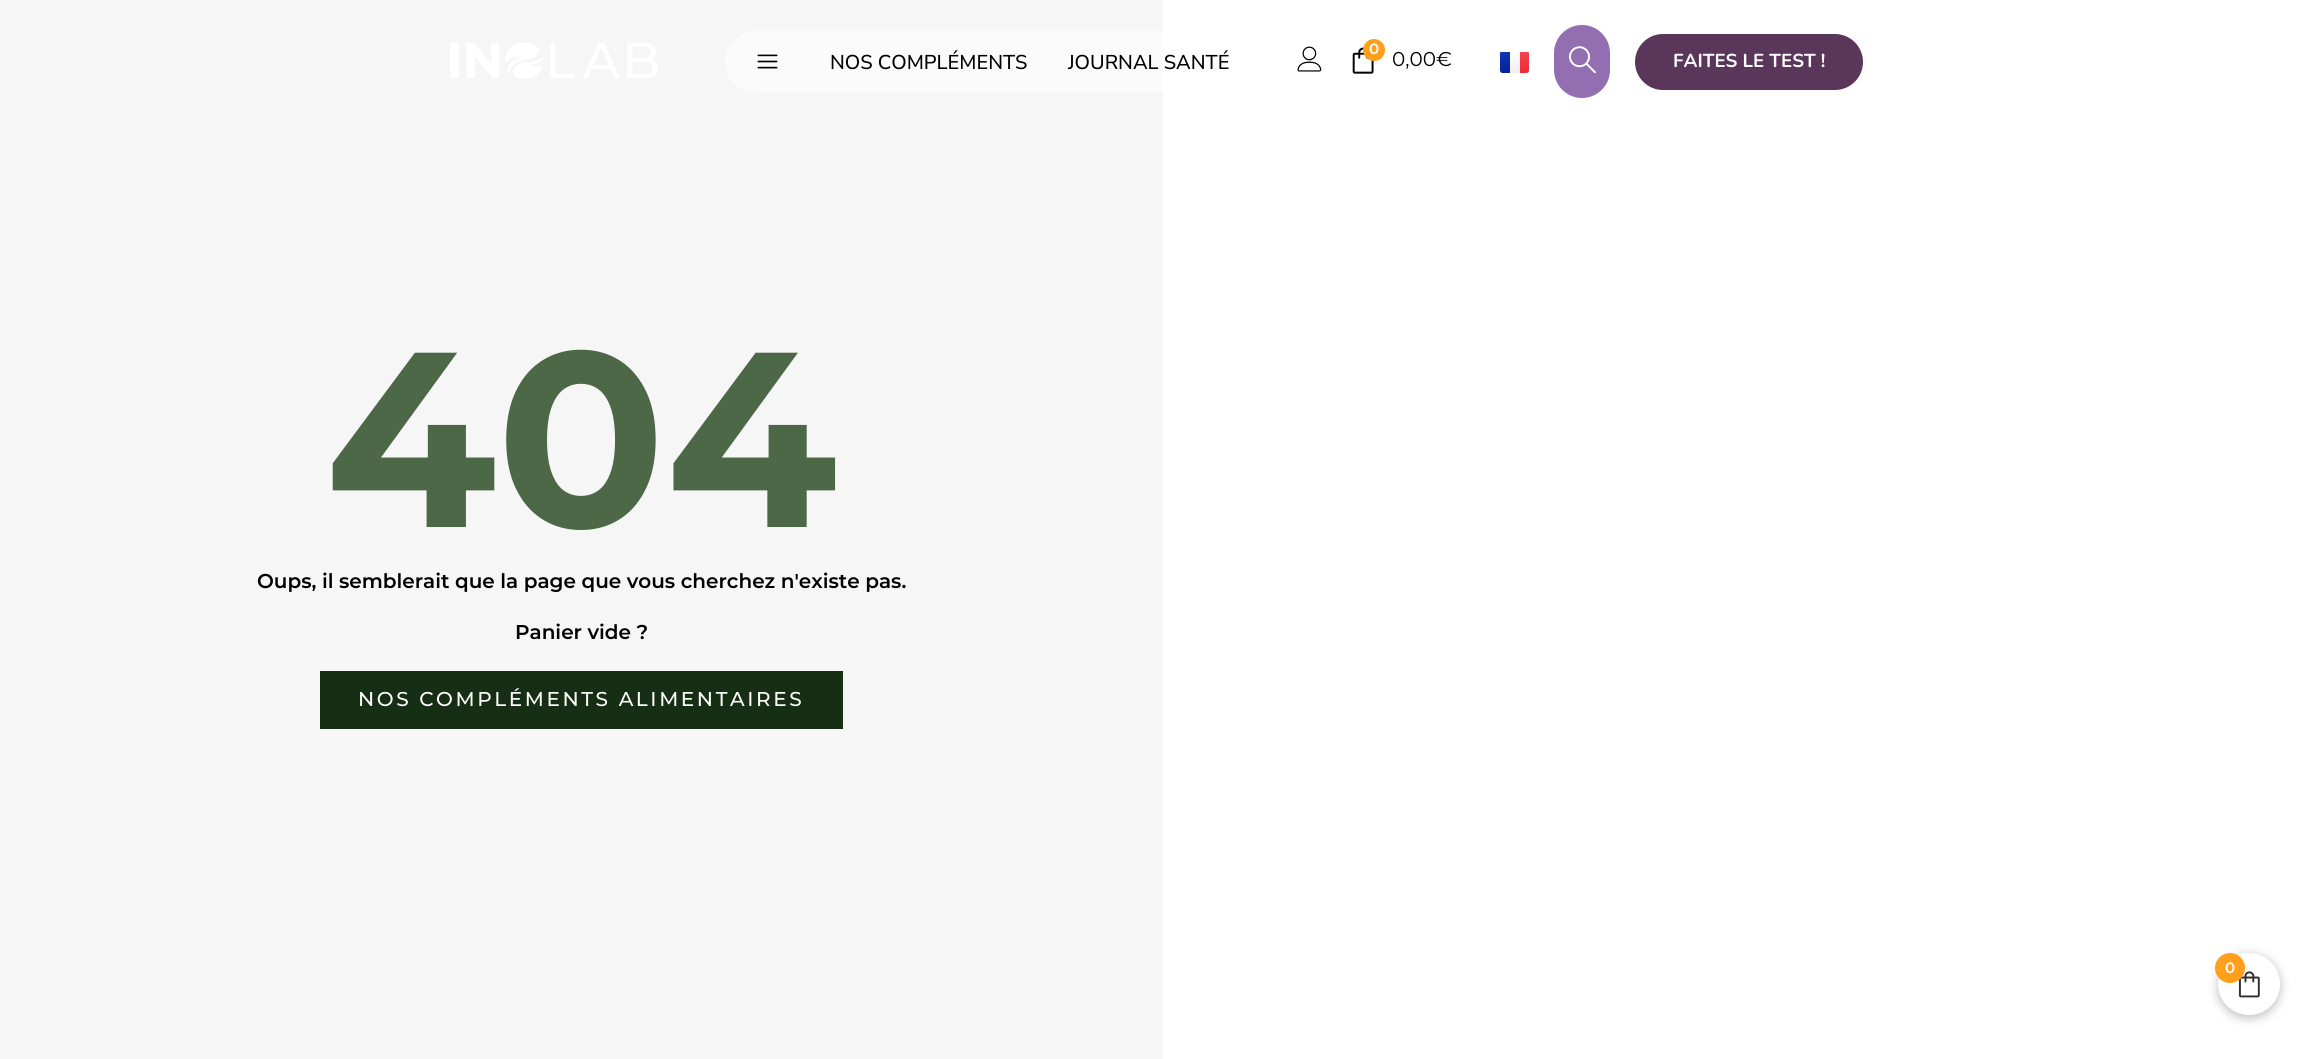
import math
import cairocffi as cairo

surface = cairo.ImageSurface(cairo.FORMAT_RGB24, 2324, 1059)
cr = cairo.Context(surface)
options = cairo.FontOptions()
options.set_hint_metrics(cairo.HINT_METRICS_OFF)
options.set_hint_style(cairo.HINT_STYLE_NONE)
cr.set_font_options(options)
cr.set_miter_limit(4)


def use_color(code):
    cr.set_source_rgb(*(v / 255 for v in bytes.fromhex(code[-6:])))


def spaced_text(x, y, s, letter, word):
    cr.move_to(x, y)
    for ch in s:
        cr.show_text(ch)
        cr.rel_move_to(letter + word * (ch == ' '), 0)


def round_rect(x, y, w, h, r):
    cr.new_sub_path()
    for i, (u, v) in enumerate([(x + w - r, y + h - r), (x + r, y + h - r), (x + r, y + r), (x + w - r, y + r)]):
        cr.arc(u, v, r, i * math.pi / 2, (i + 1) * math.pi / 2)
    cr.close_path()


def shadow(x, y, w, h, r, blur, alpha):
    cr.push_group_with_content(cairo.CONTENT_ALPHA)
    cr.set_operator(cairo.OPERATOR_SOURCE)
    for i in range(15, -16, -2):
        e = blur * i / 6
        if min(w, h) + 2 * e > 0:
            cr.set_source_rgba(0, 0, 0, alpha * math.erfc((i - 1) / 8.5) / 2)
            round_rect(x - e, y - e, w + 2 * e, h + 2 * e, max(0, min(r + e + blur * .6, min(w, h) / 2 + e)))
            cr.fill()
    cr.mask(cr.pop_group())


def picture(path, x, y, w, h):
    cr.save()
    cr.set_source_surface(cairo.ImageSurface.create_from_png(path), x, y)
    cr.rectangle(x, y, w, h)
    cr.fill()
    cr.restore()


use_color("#ffffff")
cr.paint()
use_color("#f6f6f6")
cr.rectangle(0, 0, 1163, 1059)
cr.fill()
picture("img1.png", 450, 43, 208, 36)
cr.set_source_rgba(1, 1, 1, 0.5)
round_rect(725, 31, 750, 62, 31)
cr.fill()
picture("img2.png", 757, 54, 21, 15)
cr.select_font_face("Nunito Sans Medium")
cr.set_font_size(20)
use_color("#000000")
cr.move_to(830, 69)
cr.show_text("NOS COMPLÉMENTS")
cr.move_to(1068, 69)
cr.show_text("JOURNAL SANTÉ")
picture("img3.png", 1297, 46, 25, 26)
picture("img4.png", 1352, 47, 22, 27)
use_color("#ff9f1c")
cr.arc(1374, 50, 11, 0, 2 * math.pi)
cr.fill()
cr.select_font_face("Montserrat SemiBold")
cr.set_font_size(15)
use_color("#fdfdfd")
cr.move_to(1369, 54)
cr.show_text("0")
cr.select_font_face("Montserrat")
cr.set_font_size(20)
use_color("#000000")
cr.move_to(1392, 66)
cr.show_text("0,00€")
cr.save()
round_rect(1500, 51, 29, 22, 2.5)
cr.clip()
gradient = cairo.LinearGradient(1505, 51, 1505, 72)
gradient.add_color_stop_rgba(0, 0.063, 0.208, 0.733, 1)
gradient.add_color_stop_rgba(1, 0.016, 0.137, 0.588, 1)
cr.set_source(gradient)
cr.new_path()
cr.move_to(1500, 52)
cr.line_to(1510, 52)
cr.line_to(1510, 73)
cr.line_to(1502.5, 73)
cr.curve_to(1501, 73, 1500, 72, 1500, 70.5)
cr.close_path()
cr.fill()
gradient = cairo.LinearGradient(1522, 51, 1522, 72)
gradient.add_color_stop_rgba(0, 0.957, 0.275, 0.325, 1)
gradient.add_color_stop_rgba(1, 0.933, 0.165, 0.224, 1)
cr.set_source(gradient)
cr.new_path()
cr.move_to(1514, 52)
cr.line_to(1529, 52)
cr.line_to(1529, 70.5)
cr.curve_to(1529, 72, 1528, 73, 1526.5, 73)
cr.line_to(1514, 73)
cr.close_path()
cr.fill()
cr.restore()
gradient = cairo.LinearGradient(1515, 51, 1515, 72)
gradient.add_color_stop_rgba(0, 1, 1, 1, 1)
gradient.add_color_stop_rgba(1, 0.941, 0.941, 0.941, 1)
cr.set_source(gradient)
cr.rectangle(1510, 52, 10, 21)
cr.fill()
use_color("#936fb1")
round_rect(1554, 25, 56, 73, 28)
cr.fill()
picture("img5.png", 1569, 46, 27, 28)
use_color("#59365a")
round_rect(1635, 34, 228, 56, 28)
cr.fill()
cr.select_font_face("Nunito", cairo.FONT_SLANT_NORMAL, cairo.FONT_WEIGHT_BOLD)
cr.set_font_size(18.75)
use_color("#fdfdfd")
cr.move_to(1673, 67)
cr.show_text("FAITES LE TEST !")
cr.select_font_face("Montserrat", cairo.FONT_SLANT_NORMAL, cairo.FONT_WEIGHT_BOLD)
cr.set_font_size(249)
use_color("#4c6847")
cr.move_to(325, 527)
cr.show_text("404")
cr.select_font_face("Montserrat SemiBold")
cr.set_font_size(20)
use_color("#000000")
cr.move_to(257, 588)
cr.show_text("Oups, il semblerait que la page que vous cherchez n'existe pas.")
cr.move_to(515, 639)
cr.show_text("Panier vide ?")
use_color("#162e13")
cr.rectangle(320, 671, 523, 58)
cr.fill()
cr.select_font_face("Montserrat Medium")
use_color("#fdfdfd")
spaced_text(358, 706, "NOS COMPLÉMENTS ALIMENTAIRES", 2.6, 0)
use_color("#000000")
shadow(2218, 955, 62, 63, 31, 5, 0.25)
use_color("#ffffff")
cr.arc(2249, 984, 31, 0, 2 * math.pi)
cr.fill()
picture("img6.png", 2238, 971, 22, 27)
use_color("#ff9f1c")
cr.arc(2230, 968, 15, 0, 2 * math.pi)
cr.fill()
cr.select_font_face("Montserrat SemiBold")
cr.set_font_size(15)
use_color("#fdfdfd")
cr.move_to(2225, 973)
cr.show_text("0")
surface.write_to_png("result.png")
